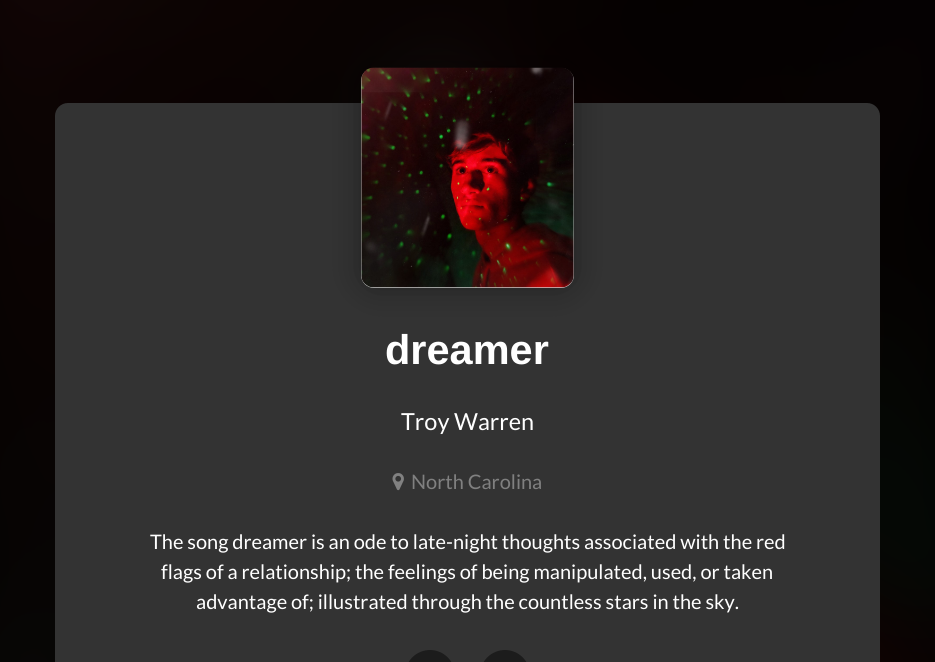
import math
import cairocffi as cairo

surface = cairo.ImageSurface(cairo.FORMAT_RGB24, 935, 662)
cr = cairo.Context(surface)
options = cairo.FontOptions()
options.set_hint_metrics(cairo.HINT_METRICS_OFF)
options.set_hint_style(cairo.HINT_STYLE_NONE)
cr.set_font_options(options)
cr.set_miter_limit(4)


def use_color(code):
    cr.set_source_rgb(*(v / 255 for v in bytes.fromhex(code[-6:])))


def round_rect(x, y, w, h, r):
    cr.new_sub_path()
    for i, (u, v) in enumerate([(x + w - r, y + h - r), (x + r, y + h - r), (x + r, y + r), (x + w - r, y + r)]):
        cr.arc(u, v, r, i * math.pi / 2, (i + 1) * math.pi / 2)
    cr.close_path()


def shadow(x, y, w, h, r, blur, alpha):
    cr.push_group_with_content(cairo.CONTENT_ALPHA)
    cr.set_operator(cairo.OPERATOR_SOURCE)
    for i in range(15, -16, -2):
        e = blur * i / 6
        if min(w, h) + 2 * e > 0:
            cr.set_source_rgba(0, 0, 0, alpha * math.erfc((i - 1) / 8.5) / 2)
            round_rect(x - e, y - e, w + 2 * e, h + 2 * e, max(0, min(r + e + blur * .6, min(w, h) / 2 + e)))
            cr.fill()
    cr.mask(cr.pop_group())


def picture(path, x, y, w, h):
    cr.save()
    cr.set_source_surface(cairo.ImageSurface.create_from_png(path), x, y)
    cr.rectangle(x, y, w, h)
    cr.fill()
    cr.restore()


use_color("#000000")
cr.paint()
picture("img1.png", 0, 0, 935, 662)
use_color("#333333")
round_rect(55, 103, 825, 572, 13)
cr.fill()
use_color("#000000")
shadow(361, 68, 213, 220, 13, 15.5, 0.35)
use_color("#cccccc")
round_rect(361, 68, 213, 220, 13)
cr.fill()
picture("img2.png", 361, 67, 213, 221)
cr.select_font_face("Liberation Sans", cairo.FONT_SLANT_NORMAL, cairo.FONT_WEIGHT_BOLD)
cr.set_font_size(41.5)
use_color("#ffffff")
cr.move_to(385, 364)
cr.show_text("dreamer")
cr.select_font_face("Lato")
cr.set_font_size(23.5)
cr.move_to(401, 430)
cr.show_text("Troy Warren")
picture("img3.png", 392, 473, 12, 18)
cr.set_font_size(20)
use_color("#808080")
cr.move_to(411, 489)
cr.show_text("North Carolina")
use_color("#ffffff")
cr.move_to(150, 549)
cr.show_text("The song dreamer is an ode to late-night thoughts associated with the red")
cr.move_to(161, 579)
cr.show_text("flags of a relationship; the feelings of being manipulated, used, or taken")
cr.move_to(196, 609)
cr.show_text("advantage of; illustrated through the countless stars in the sky.")
use_color("#1c1c1c")
round_rect(405, 650, 50, 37, 25)
cr.fill()
round_rect(480, 650, 50, 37, 25)
cr.fill()
surface.write_to_png("result.png")
